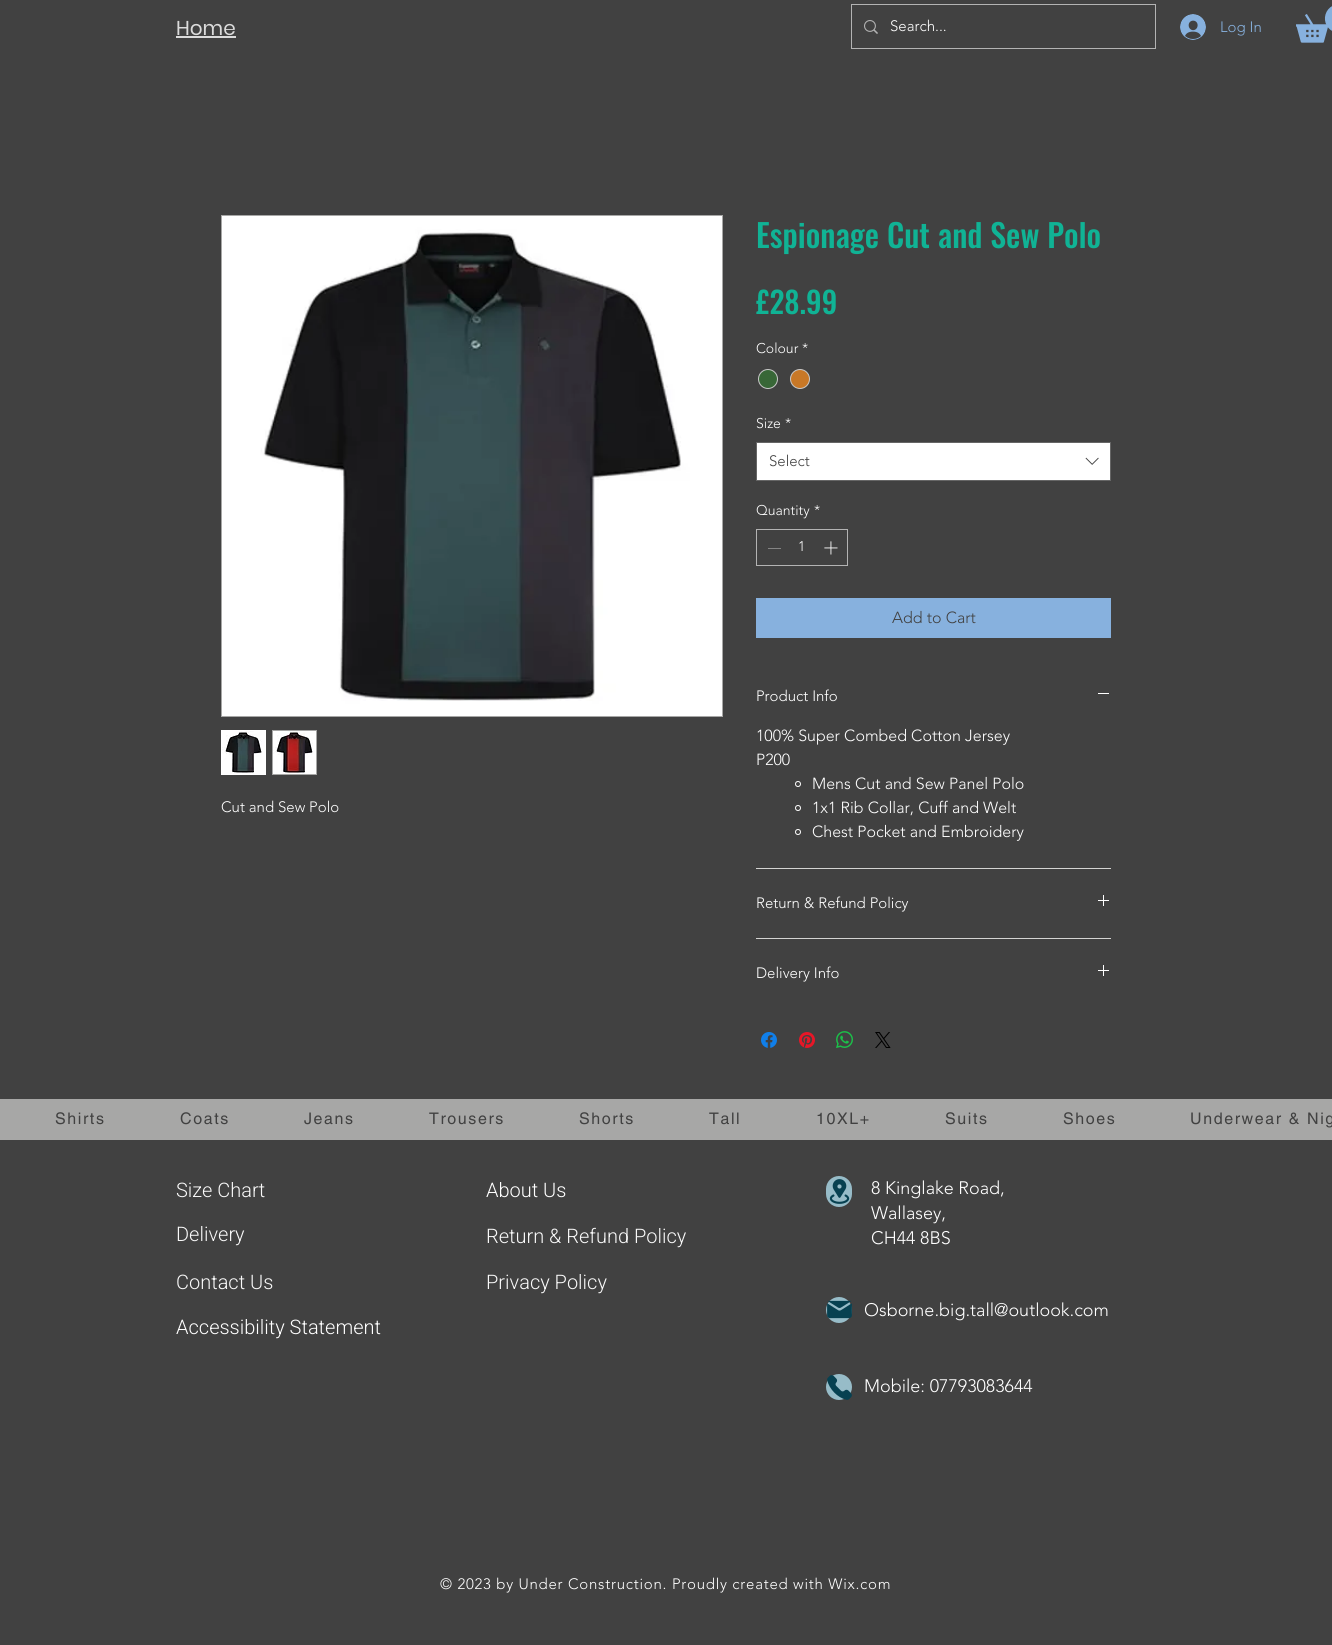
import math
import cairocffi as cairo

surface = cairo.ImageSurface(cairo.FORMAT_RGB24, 1332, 1645)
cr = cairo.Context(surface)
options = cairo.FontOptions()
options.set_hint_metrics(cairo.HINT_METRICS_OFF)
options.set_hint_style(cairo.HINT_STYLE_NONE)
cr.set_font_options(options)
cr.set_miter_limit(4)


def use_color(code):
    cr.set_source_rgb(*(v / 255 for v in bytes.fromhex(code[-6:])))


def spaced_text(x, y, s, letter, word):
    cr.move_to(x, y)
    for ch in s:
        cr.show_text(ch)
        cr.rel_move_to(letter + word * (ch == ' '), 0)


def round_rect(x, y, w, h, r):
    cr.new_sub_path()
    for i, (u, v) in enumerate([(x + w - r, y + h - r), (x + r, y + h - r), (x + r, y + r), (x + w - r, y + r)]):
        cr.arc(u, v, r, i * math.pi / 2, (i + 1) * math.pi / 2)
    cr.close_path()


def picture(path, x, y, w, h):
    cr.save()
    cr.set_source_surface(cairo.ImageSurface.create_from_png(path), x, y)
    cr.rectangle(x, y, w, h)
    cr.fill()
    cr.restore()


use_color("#414141")
cr.paint()
cr.select_font_face("Poppins")
cr.set_font_size(20)
use_color("#dbdbdb")
cr.move_to(176, 35)
cr.show_text("Home")
cr.rectangle(176, 36, 60, 2)
cr.fill()
cr.rectangle(851.5, 4.5, 304, 44)
use_color("#b3b3b3")
cr.set_line_width(1)
cr.stroke()
picture("img1.png", 864, 20, 14, 14)
cr.select_font_face("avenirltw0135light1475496 Light")
cr.set_font_size(15)
use_color("#ffffff")
cr.move_to(890, 31)
cr.show_text("Search...")
picture("img2.png", 1180, 14, 26, 26)
use_color("#87b1de")
cr.move_to(1220, 32)
cr.show_text("Log In")
picture("img3.png", 1296, 6, 36, 37)
cr.rectangle(221.5, 215.5, 501, 501)
use_color("#a7a7a6")
cr.stroke()
picture("img4.png", 222, 216, 500, 500)
cr.rectangle(221.5, 730.5, 44, 44)
use_color("#ffffff")
cr.stroke()
picture("img5.png", 222, 731, 43, 43)
cr.rectangle(272.5, 730.5, 44, 44)
use_color("#a7a7a6")
cr.stroke()
picture("img6.png", 273, 731, 43, 43)
use_color("#ffffff")
cr.move_to(221, 812)
cr.show_text("Cut and Sew Polo")
cr.select_font_face("Oswald Medium")
cr.set_font_size(32)
use_color("#10b395")
cr.move_to(756, 248)
cr.show_text("Espionage Cut and Sew Polo")
cr.set_font_size(30)
cr.move_to(756, 314)
cr.show_text("£28.99")
cr.select_font_face("avenirltw0135light1475496 Light")
cr.set_font_size(14)
use_color("#ffffff")
cr.move_to(756, 353)
cr.show_text("Colour")
cr.move_to(802, 353)
cr.show_text("*")
use_color("#386737")
cr.new_path()
cr.arc(768, 379, 9.5, 0, 2 * math.pi)
cr.fill_preserve()
use_color("#c9c9c9")
cr.stroke()
use_color("#c87827")
cr.arc(800, 379, 9.5, 0, 2 * math.pi)
cr.fill_preserve()
use_color("#c9c9c9")
cr.stroke()
use_color("#ffffff")
cr.move_to(756, 428)
cr.show_text("Size")
cr.move_to(785, 428)
cr.show_text("*")
cr.rectangle(756.5, 442.5, 354, 38)
cr.fill_preserve()
use_color("#666666")
cr.stroke()
cr.set_font_size(15)
use_color("#414141")
cr.move_to(769, 466)
cr.show_text("Select")
picture("img7.png", 1085, 457, 14, 8)
cr.set_font_size(14)
use_color("#ffffff")
cr.move_to(756, 515)
cr.show_text("Quantity")
cr.move_to(814, 515)
cr.show_text("*")
cr.rectangle(756.5, 529.5, 91, 36)
use_color("#b3b3b3")
cr.stroke()
use_color("#848484")
cr.rectangle(768, 548, 13, 1)
cr.fill()
use_color("#ffffff")
cr.move_to(798, 551)
cr.show_text("1")
picture("img8.png", 824, 541, 14, 14)
use_color("#87b1de")
cr.rectangle(756, 598, 355, 40)
cr.fill()
cr.set_font_size(16)
use_color("#414141")
cr.move_to(892, 623)
cr.show_text("Add to Cart")
use_color("#d4d4d2")
cr.rectangle(756, 868, 355, 1)
cr.fill()
cr.set_font_size(15)
use_color("#ffffff")
cr.move_to(756, 701)
cr.show_text("Product Info")
cr.rectangle(1098, 693, 11, 1)
cr.fill()
cr.set_font_size(16)
cr.move_to(756, 741)
cr.show_text("100% Super Combed Cotton Jersey")
cr.move_to(756, 765)
cr.show_text("P200")
cr.new_path()
cr.arc(798, 784, 2.5, 0, 2 * math.pi)
cr.stroke()
cr.move_to(812, 789)
cr.show_text("Mens Cut and Sew Panel Polo")
cr.new_path()
cr.arc(798, 808, 2.5, 0, 2 * math.pi)
cr.stroke()
cr.move_to(812, 813)
cr.show_text("1x1 Rib Collar, Cuff and Welt")
cr.new_path()
cr.arc(798, 832, 2.5, 0, 2 * math.pi)
cr.stroke()
cr.move_to(812, 837)
cr.show_text("Chest Pocket and Embroidery")
use_color("#d4d4d2")
cr.rectangle(756, 938, 355, 1)
cr.fill()
cr.set_font_size(15)
use_color("#ffffff")
cr.move_to(756, 908)
cr.show_text("Return & Refund Policy")
picture("img9.png", 1098, 895, 11, 11)
cr.move_to(756, 978)
cr.show_text("Delivery Info")
picture("img9.png", 1098, 965, 11, 11)
picture("img10.png", 761, 1032, 16, 16)
picture("img11.png", 799, 1032, 16, 16)
picture("img12.png", 836, 1031, 17, 17)
picture("img13.png", 875, 1032, 16, 16)
use_color("#a7a7a6")
cr.rectangle(0, 1099, 1332, 41)
cr.fill()
cr.select_font_face("helvetica")
cr.set_font_size(16)
use_color("#414141")
spaced_text(55, 1124, "Shirts", 1.6, 0)
spaced_text(180, 1124, "Coats", 1.6, 0)
spaced_text(304, 1124, "Jeans", 1.6, 0)
spaced_text(429, 1124, "Trousers", 1.6, 0)
spaced_text(579, 1124, "Shorts", 1.6, 0)
spaced_text(709, 1124, "Tall", 1.6, 0)
spaced_text(816, 1124, "10XL+", 1.6, 0)
spaced_text(945, 1124, "Suits", 1.6, 0)
spaced_text(1063, 1124, "Shoes", 1.6, 0)
spaced_text(1190, 1124, "Underwear & Nig", 1.6, 0)
cr.select_font_face("Heebo Light")
cr.set_font_size(20)
use_color("#f9f9f9")
cr.move_to(176, 1197)
cr.show_text("Size Chart")
use_color("#ffffff")
cr.move_to(486, 1197)
cr.show_text("About Us")
use_color("#97bcc8")
round_rect(826, 1176, 26, 31, 13)
cr.fill()
picture("img14.png", 829, 1179, 21, 25)
cr.select_font_face("avenirltw0135light1475496 Light")
cr.set_font_size(18)
use_color("#ffffff")
cr.move_to(871, 1194)
cr.show_text("8 Kinglake Road,")
cr.move_to(871, 1219)
cr.show_text("Wallasey,")
cr.move_to(871, 1244)
cr.show_text("CH44 8BS")
cr.select_font_face("Heebo Light")
cr.set_font_size(20)
use_color("#f9f9f9")
cr.move_to(176, 1241)
cr.show_text("Delivery")
cr.move_to(486, 1243)
cr.show_text("Return & Refund Policy")
cr.move_to(176, 1289)
cr.show_text("Contact Us")
cr.move_to(486, 1289)
cr.show_text("Privacy Policy")
use_color("#97bcc8")
cr.new_path()
cr.arc(839, 1310, 13, 0, 2 * math.pi)
cr.fill()
picture("img15.png", 827, 1300, 25, 19)
cr.select_font_face("avenirltw0135light1475496 Light")
cr.set_font_size(18)
use_color("#ffffff")
cr.move_to(864, 1316)
cr.show_text("Osborne.big.tall@outlook.com")
cr.select_font_face("Heebo Light")
cr.set_font_size(20)
cr.move_to(176, 1334)
cr.show_text("Accessibility Statement")
use_color("#97bcc8")
cr.new_path()
cr.arc(839, 1387, 13, 0, 2 * math.pi)
cr.fill()
picture("img16.png", 827, 1375, 25, 25)
cr.select_font_face("avenirltw0135light1475496 Light")
cr.set_font_size(18)
use_color("#ffffff")
cr.move_to(864, 1392)
cr.show_text("Mobile: 07793083644")
cr.set_font_size(15)
spaced_text(440, 1589, "© 2023 by Under Construction. Proudly created with Wix.com", 0.75, 0)
surface.write_to_png("result.png")
